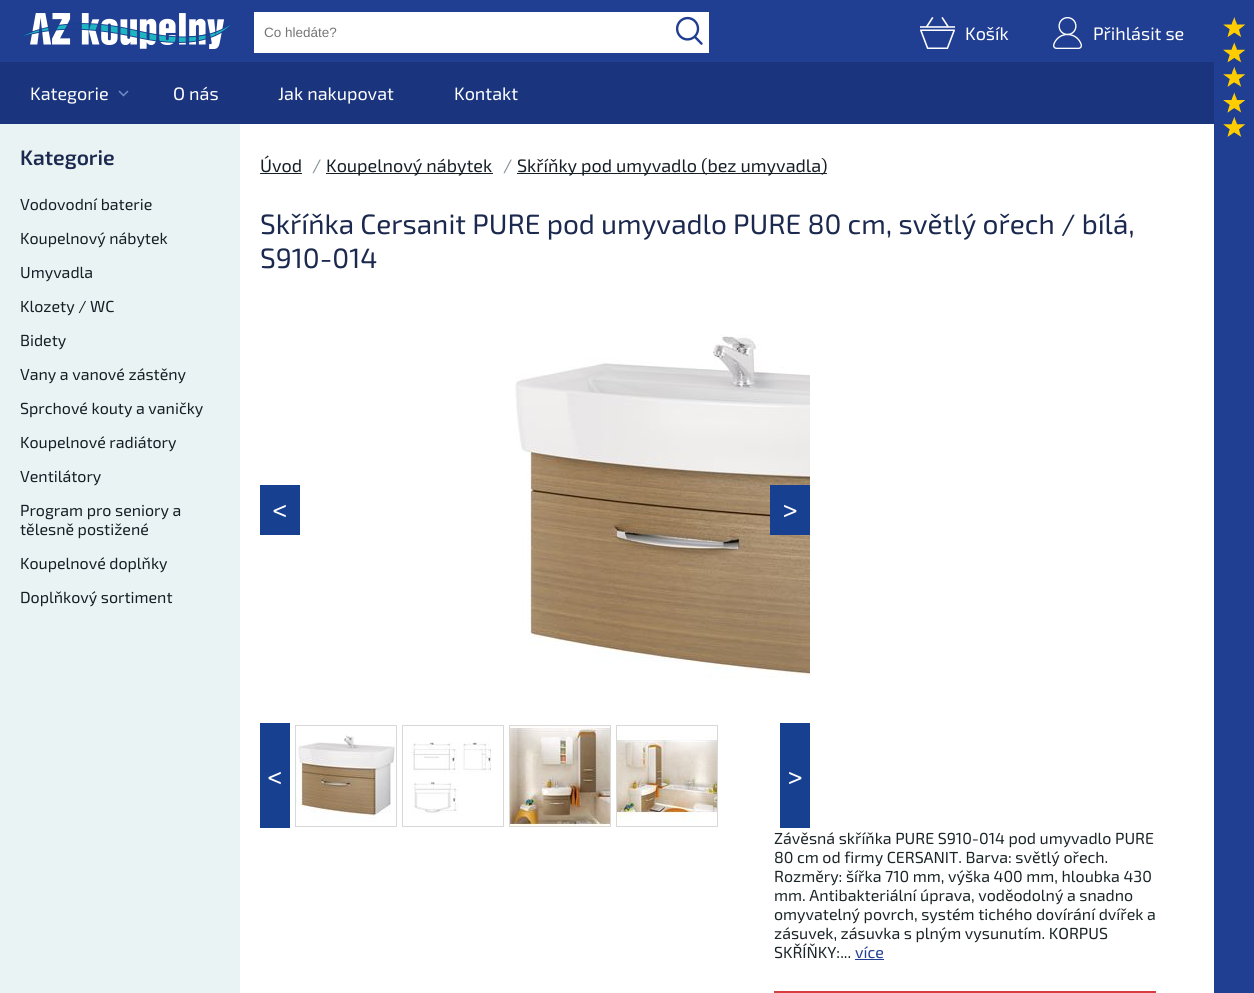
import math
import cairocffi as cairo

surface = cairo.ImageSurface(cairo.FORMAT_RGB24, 1254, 993)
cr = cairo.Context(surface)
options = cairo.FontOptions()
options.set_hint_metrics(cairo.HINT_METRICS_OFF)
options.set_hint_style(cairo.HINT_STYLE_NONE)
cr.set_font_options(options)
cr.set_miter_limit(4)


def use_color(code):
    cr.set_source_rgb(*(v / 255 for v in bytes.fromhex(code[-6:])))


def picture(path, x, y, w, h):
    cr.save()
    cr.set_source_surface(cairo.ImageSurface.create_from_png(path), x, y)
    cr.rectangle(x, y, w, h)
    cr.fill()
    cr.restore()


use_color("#ffffff")
cr.paint()
use_color("#203e92")
cr.rectangle(0, 0, 1214, 62)
cr.fill()
picture("img1.png", 20, 13, 214, 36)
use_color("#ffffff")
cr.rectangle(254, 12, 455, 41)
cr.fill()
cr.select_font_face("Liberation Sans")
cr.set_font_size(13.5)
use_color("#757575")
cr.move_to(264, 37)
cr.show_text("Co hledáte?")
picture("img2.png", 676, 16, 27, 29)
picture("img3.png", 920, 17, 35, 32)
cr.select_font_face("Exo 2")
cr.set_font_size(18)
use_color("#ffffff")
cr.move_to(965, 40)
cr.show_text("Košík")
picture("img4.png", 1053, 17, 29, 32)
cr.move_to(1093, 40)
cr.show_text("Přihlásit se")
use_color("#203e92")
cr.rectangle(1214, 0, 40, 993)
cr.fill()
picture("img5.png", 1223, 17, 22, 120)
use_color("#1a347d")
cr.rectangle(0, 62, 1214, 62)
cr.fill()
picture("img6.png", 118, 90, 11, 7)
use_color("#ffffff")
cr.move_to(30, 100)
cr.show_text("Kategorie")
cr.move_to(173, 100)
cr.show_text("O nás")
cr.move_to(278, 100)
cr.show_text("Jak nakupovat")
cr.move_to(454, 100)
cr.show_text("Kontakt")
use_color("#e9f3f4")
cr.rectangle(0, 124, 240, 869)
cr.fill()
cr.select_font_face("Exo 2 SemiBold")
cr.set_font_size(21)
use_color("#1c294f")
cr.move_to(20, 165)
cr.show_text("Kategorie")
cr.select_font_face("Exo 2")
cr.set_font_size(16)
use_color("#161e26")
cr.move_to(20, 210)
cr.show_text("Vodovodní baterie")
cr.move_to(20, 244)
cr.show_text("Koupelnový nábytek")
cr.move_to(20, 278)
cr.show_text("Umyvadla")
cr.move_to(20, 312)
cr.show_text("Klozety / WC")
cr.move_to(20, 346)
cr.show_text("Bidety")
cr.move_to(20, 380)
cr.show_text("Vany a vanové zástěny")
cr.move_to(20, 414)
cr.show_text("Sprchové kouty a vaničky")
cr.move_to(20, 448)
cr.show_text("Koupelnové radiátory")
cr.move_to(20, 482)
cr.show_text("Ventilátory")
cr.move_to(20, 516)
cr.show_text("Program pro seniory a")
cr.move_to(20, 535)
cr.show_text("tělesně postižené")
cr.move_to(20, 569)
cr.show_text("Koupelnové doplňky")
cr.move_to(20, 603)
cr.show_text("Doplňkový sortiment")
cr.set_font_size(18)
cr.move_to(260, 172)
cr.show_text("Úvod")
cr.rectangle(260, 173, 42, 1)
cr.fill()
use_color("#85909a")
cr.move_to(312, 172)
cr.show_text("/")
use_color("#161e26")
cr.rectangle(326, 173, 167, 1)
cr.fill()
cr.move_to(326, 172)
cr.show_text("Koupelnový nábytek")
use_color("#85909a")
cr.move_to(503, 172)
cr.show_text("/")
use_color("#161e26")
cr.rectangle(517, 173, 310, 1)
cr.fill()
cr.move_to(517, 172)
cr.show_text("Skříňky pod umyvadlo (bez umyvadla)")
cr.set_font_size(28)
use_color("#1c294f")
cr.move_to(260, 234)
cr.show_text("Skříňka Cersanit PURE pod umyvadlo PURE 80 cm, světlý ořech / bílá,")
cr.move_to(260, 268)
cr.show_text("S910-014")
picture("img7.png", 515, 335, 295, 343)
use_color("#174091")
cr.rectangle(260, 485, 40, 50)
cr.fill()
cr.set_font_size(30)
use_color("#ffffff")
cr.move_to(272, 520)
cr.show_text("<")
use_color("#174091")
cr.rectangle(770, 485, 40, 50)
cr.fill()
use_color("#ffffff")
cr.move_to(782, 520)
cr.show_text(">")
use_color("#174091")
cr.rectangle(260, 723, 30, 105)
cr.fill()
use_color("#ffffff")
cr.move_to(267, 787)
cr.show_text("<")
cr.rectangle(295.5, 725.5, 101, 101)
use_color("#d8d8d8")
cr.set_line_width(1)
cr.stroke()
picture("img8.png", 296, 734, 99, 88)
cr.rectangle(402.5, 725.5, 101, 101)
cr.stroke()
picture("img9.png", 411, 742, 80, 72)
cr.rectangle(509.5, 725.5, 101, 101)
cr.stroke()
picture("img10.png", 510, 726, 100, 100)
cr.rectangle(616.5, 725.5, 101, 101)
cr.stroke()
picture("img11.png", 617, 736, 100, 87)
use_color("#174091")
cr.rectangle(780, 723, 30, 105)
cr.fill()
use_color("#ffffff")
cr.move_to(787, 787)
cr.show_text(">")
cr.set_font_size(16)
use_color("#1b2528")
cr.move_to(774, 844)
cr.show_text("Závěsná skříňka PURE S910-014 pod umyvadlo PURE")
cr.move_to(774, 863)
cr.show_text("80 cm od firmy CERSANIT. Barva: světlý ořech.")
cr.move_to(774, 882)
cr.show_text("Rozměry: šířka 710 mm, výška 400 mm, hloubka 430")
cr.move_to(774, 901)
cr.show_text("mm. Antibakteriální úprava, voděodolný a snadno")
cr.move_to(774, 920)
cr.show_text("omyvatelný povrch, systém tichého dovírání dvířek a")
cr.move_to(774, 939)
cr.show_text("zásuvek, zásuvka s plným vysunutím. KORPUS")
cr.move_to(774, 958)
cr.show_text("SKŘÍŇKY:...")
use_color("#203e92")
cr.move_to(855, 958)
cr.show_text("více")
cr.rectangle(855, 959, 29, 1)
cr.fill()
use_color("#d83d41")
cr.rectangle(774, 991, 382, 2)
cr.fill()
surface.write_to_png("result.png")
